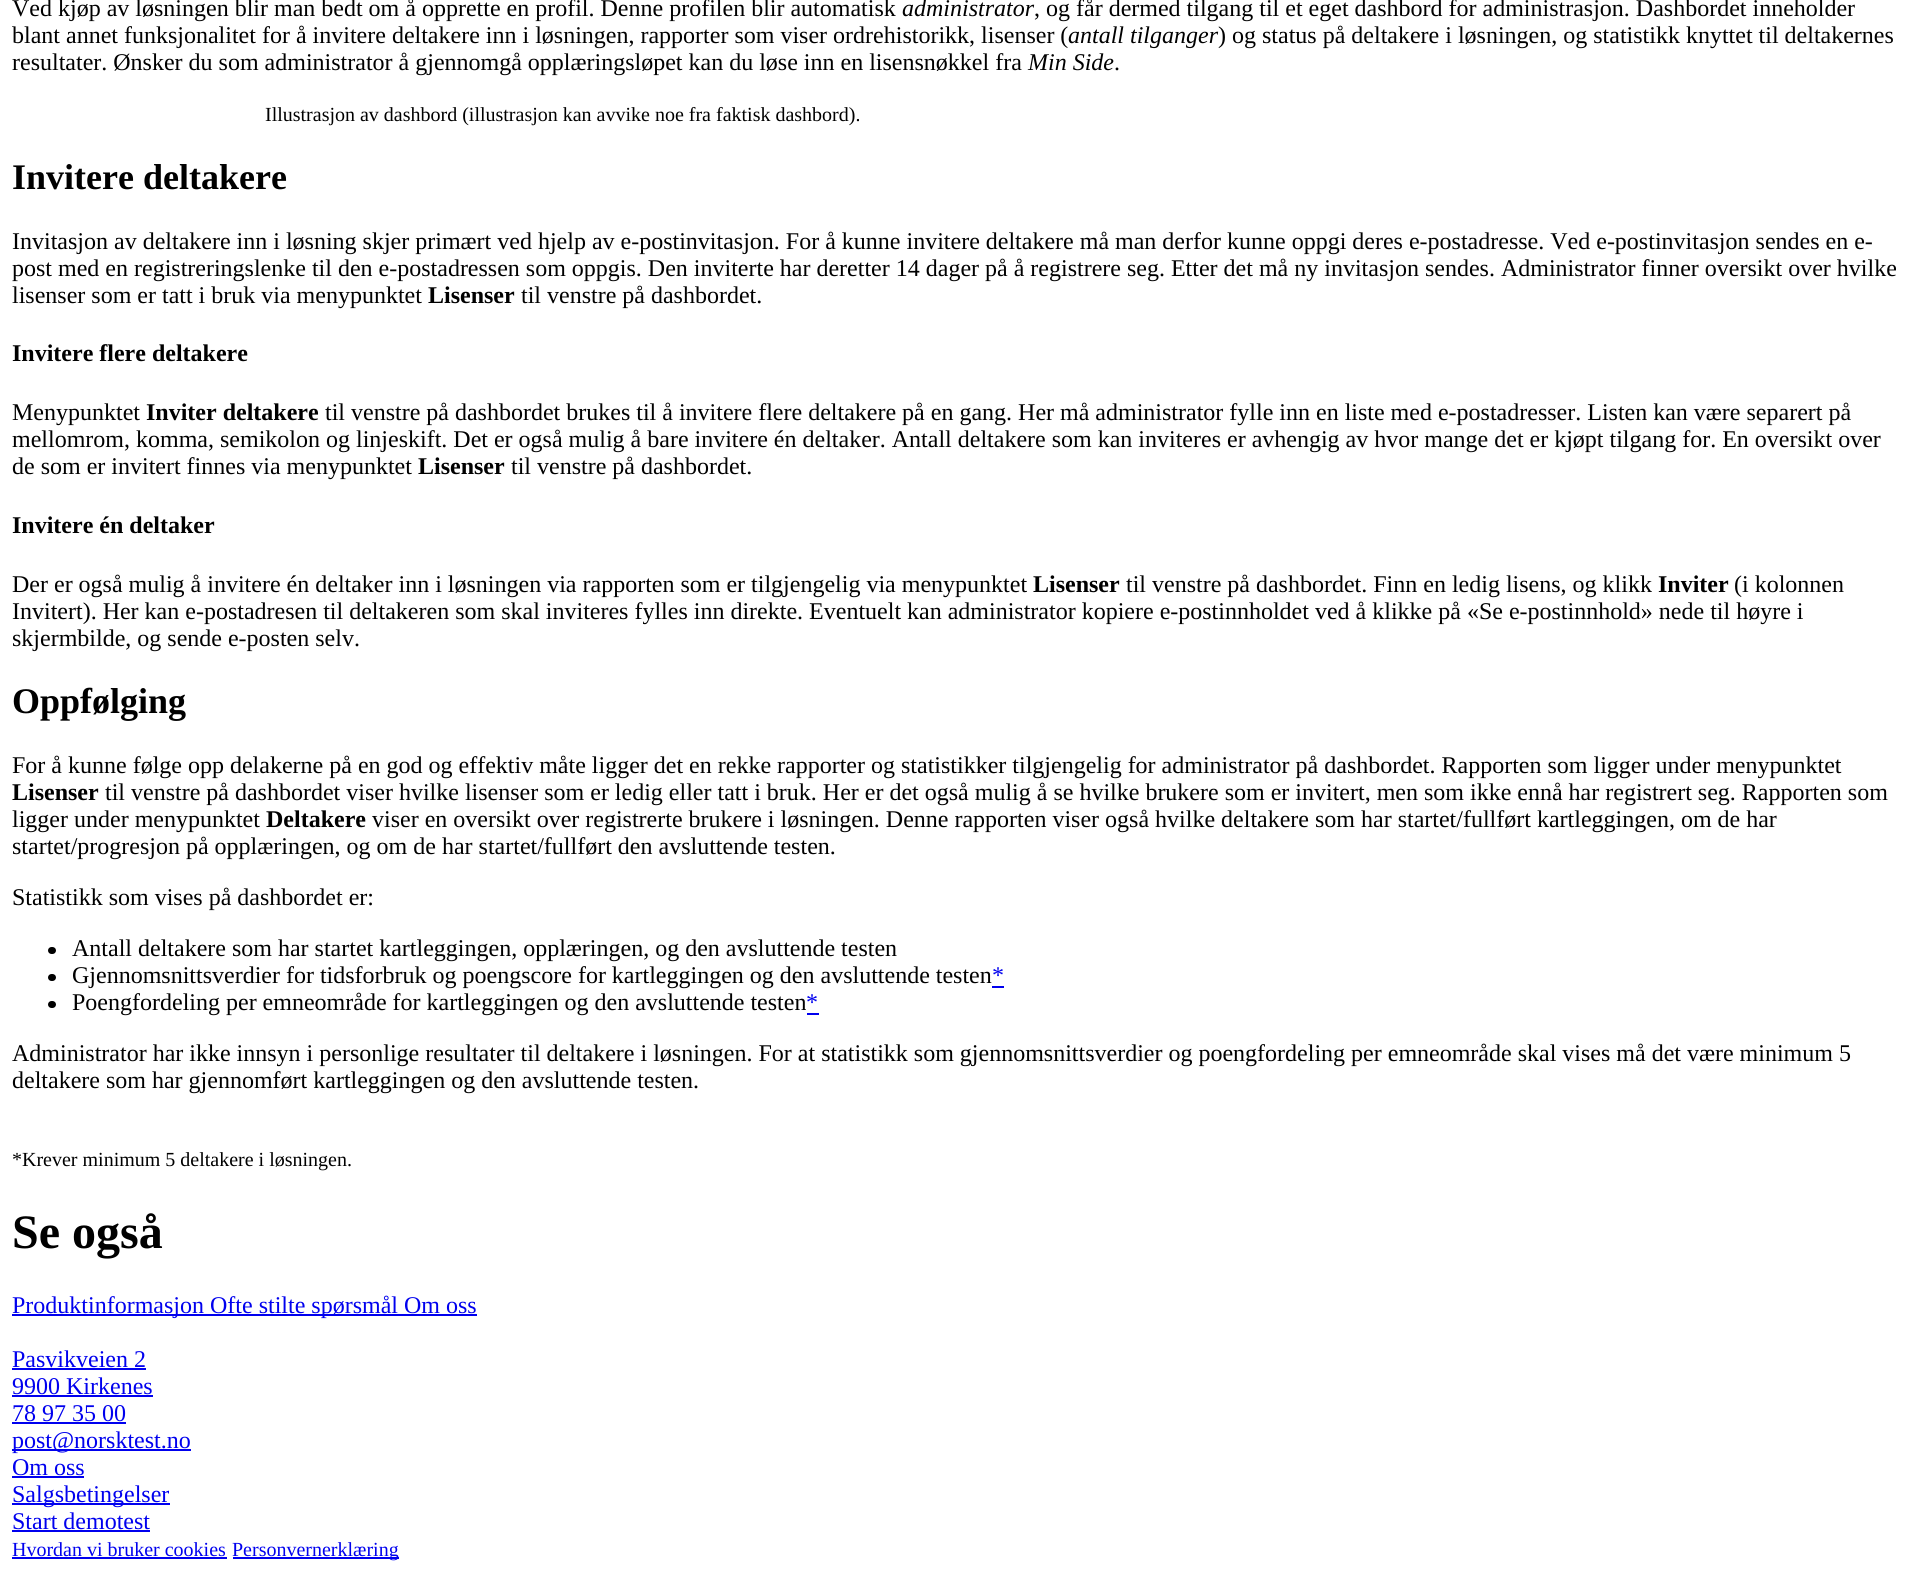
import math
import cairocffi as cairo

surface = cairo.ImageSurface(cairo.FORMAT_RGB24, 1916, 1573)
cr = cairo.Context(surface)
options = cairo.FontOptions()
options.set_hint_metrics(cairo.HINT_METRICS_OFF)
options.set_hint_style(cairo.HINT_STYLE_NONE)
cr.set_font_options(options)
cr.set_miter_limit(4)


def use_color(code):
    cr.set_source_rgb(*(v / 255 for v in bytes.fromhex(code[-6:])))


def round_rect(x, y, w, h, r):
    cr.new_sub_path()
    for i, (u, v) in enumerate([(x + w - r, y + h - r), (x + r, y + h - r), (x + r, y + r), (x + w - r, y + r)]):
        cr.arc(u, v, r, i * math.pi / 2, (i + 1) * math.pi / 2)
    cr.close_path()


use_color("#ffffff")
cr.paint()
cr.select_font_face("Liberation Serif")
cr.set_font_size(24)
use_color("#000000")
cr.move_to(12, 16)
cr.show_text("Ved kjøp av løsningen blir man bedt om å opprette en profil. Denne profilen blir automatisk")
cr.select_font_face("Liberation Serif", cairo.FONT_SLANT_ITALIC)
cr.move_to(902, 16)
cr.show_text("administrator")
cr.select_font_face("Liberation Serif")
cr.move_to(1034, 16)
cr.show_text(", og får dermed tilgang til et eget dashbord for administrasjon. Dashbordet inneholder")
cr.move_to(12, 43)
cr.show_text("blant annet funksjonalitet for å invitere deltakere inn i løsningen, rapporter som viser ordrehistorikk, lisenser (")
cr.select_font_face("Liberation Serif", cairo.FONT_SLANT_ITALIC)
cr.move_to(1068, 43)
cr.show_text("antall tilganger")
cr.select_font_face("Liberation Serif")
cr.move_to(1218, 43)
cr.show_text(") og status på deltakere i løsningen, og statistikk knyttet til deltakernes")
cr.move_to(12, 70)
cr.show_text("resultater. Ønsker du som administrator å gjennomgå opplæringsløpet kan du løse inn en lisensnøkkel fra")
cr.select_font_face("Liberation Serif", cairo.FONT_SLANT_ITALIC)
cr.move_to(1028, 70)
cr.show_text("Min Side")
cr.select_font_face("Liberation Serif")
cr.move_to(1114, 70)
cr.show_text(".")
cr.set_font_size(20)
cr.move_to(265, 121)
cr.show_text("Illustrasjon av dashbord (illustrasjon kan avvike noe fra faktisk dashbord).")
cr.select_font_face("Liberation Serif", cairo.FONT_SLANT_NORMAL, cairo.FONT_WEIGHT_BOLD)
cr.set_font_size(36)
cr.move_to(12, 189)
cr.show_text("Invitere deltakere")
cr.select_font_face("Liberation Serif")
cr.set_font_size(24)
cr.move_to(12, 249)
cr.show_text("Invitasjon av deltakere inn i løsning skjer primært ved hjelp av e-postinvitasjon. For å kunne invitere deltakere må man derfor kunne oppgi deres e-postadresse. Ved e-postinvitasjon sendes en e-")
cr.move_to(12, 276)
cr.show_text("post med en registreringslenke til den e-postadressen som oppgis. Den inviterte har deretter 14 dager på å registrere seg. Etter det må ny invitasjon sendes. Administrator finner oversikt over hvilke")
cr.move_to(12, 303)
cr.show_text("lisenser som er tatt i bruk via menypunktet")
cr.select_font_face("Liberation Serif", cairo.FONT_SLANT_NORMAL, cairo.FONT_WEIGHT_BOLD)
cr.move_to(428, 303)
cr.show_text("Lisenser")
cr.select_font_face("Liberation Serif")
cr.move_to(521, 303)
cr.show_text("til venstre på dashbordet.")
cr.select_font_face("Liberation Serif", cairo.FONT_SLANT_NORMAL, cairo.FONT_WEIGHT_BOLD)
cr.move_to(12, 361)
cr.show_text("Invitere flere deltakere")
cr.select_font_face("Liberation Serif")
cr.move_to(12, 420)
cr.show_text("Menypunktet")
cr.select_font_face("Liberation Serif", cairo.FONT_SLANT_NORMAL, cairo.FONT_WEIGHT_BOLD)
cr.move_to(146, 420)
cr.show_text("Inviter deltakere")
cr.select_font_face("Liberation Serif")
cr.move_to(325, 420)
cr.show_text("til venstre på dashbordet brukes til å invitere flere deltakere på en gang. Her må administrator fylle inn en liste med e-postadresser. Listen kan være separert på")
cr.move_to(12, 447)
cr.show_text("mellomrom, komma, semikolon og linjeskift. Det er også mulig å bare invitere én deltaker. Antall deltakere som kan inviteres er avhengig av hvor mange det er kjøpt tilgang for. En oversikt over")
cr.move_to(12, 474)
cr.show_text("de som er invitert finnes via menypunktet")
cr.select_font_face("Liberation Serif", cairo.FONT_SLANT_NORMAL, cairo.FONT_WEIGHT_BOLD)
cr.move_to(418, 474)
cr.show_text("Lisenser")
cr.select_font_face("Liberation Serif")
cr.move_to(511, 474)
cr.show_text("til venstre på dashbordet.")
cr.select_font_face("Liberation Serif", cairo.FONT_SLANT_NORMAL, cairo.FONT_WEIGHT_BOLD)
cr.move_to(12, 533)
cr.show_text("Invitere én deltaker")
cr.select_font_face("Liberation Serif")
cr.move_to(12, 592)
cr.show_text("Der er også mulig å invitere én deltaker inn i løsningen via rapporten som er tilgjengelig via menypunktet")
cr.select_font_face("Liberation Serif", cairo.FONT_SLANT_NORMAL, cairo.FONT_WEIGHT_BOLD)
cr.move_to(1033, 592)
cr.show_text("Lisenser")
cr.select_font_face("Liberation Serif")
cr.move_to(1126, 592)
cr.show_text("til venstre på dashbordet. Finn en ledig lisens, og klikk")
cr.select_font_face("Liberation Serif", cairo.FONT_SLANT_NORMAL, cairo.FONT_WEIGHT_BOLD)
cr.move_to(1658, 592)
cr.show_text("Inviter")
cr.select_font_face("Liberation Serif")
cr.move_to(1734, 592)
cr.show_text("(i kolonnen")
cr.move_to(12, 619)
cr.show_text("Invitert). Her kan e-postadresen til deltakeren som skal inviteres fylles inn direkte. Eventuelt kan administrator kopiere e-postinnholdet ved å klikke på «Se e-postinnhold» nede til høyre i")
cr.move_to(12, 646)
cr.show_text("skjermbilde, og sende e-posten selv.")
cr.select_font_face("Liberation Serif", cairo.FONT_SLANT_NORMAL, cairo.FONT_WEIGHT_BOLD)
cr.set_font_size(36)
cr.move_to(12, 713)
cr.show_text("Oppfølging")
cr.select_font_face("Liberation Serif")
cr.set_font_size(24)
cr.move_to(12, 773)
cr.show_text("For å kunne følge opp delakerne på en god og effektiv måte ligger det en rekke rapporter og statistikker tilgjengelig for administrator på dashbordet. Rapporten som ligger under menypunktet")
cr.select_font_face("Liberation Serif", cairo.FONT_SLANT_NORMAL, cairo.FONT_WEIGHT_BOLD)
cr.move_to(12, 800)
cr.show_text("Lisenser")
cr.select_font_face("Liberation Serif")
cr.move_to(105, 800)
cr.show_text("til venstre på dashbordet viser hvilke lisenser som er ledig eller tatt i bruk. Her er det også mulig å se hvilke brukere som er invitert, men som ikke ennå har registrert seg. Rapporten som")
cr.move_to(12, 827)
cr.show_text("ligger under menypunktet")
cr.select_font_face("Liberation Serif", cairo.FONT_SLANT_NORMAL, cairo.FONT_WEIGHT_BOLD)
cr.move_to(266, 827)
cr.show_text("Deltakere")
cr.select_font_face("Liberation Serif")
cr.move_to(372, 827)
cr.show_text("viser en oversikt over registrerte brukere i løsningen. Denne rapporten viser også hvilke deltakere som har startet/fullført kartleggingen, om de har")
cr.move_to(12, 854)
cr.show_text("startet/progresjon på opplæringen, og om de har startet/fullført den avsluttende testen.")
cr.move_to(12, 905)
cr.show_text("Statistikk som vises på dashbordet er:")
round_rect(48, 947, 8, 7, 3.5)
cr.fill()
cr.move_to(72, 956)
cr.show_text("Antall deltakere som har startet kartleggingen, opplæringen, og den avsluttende testen")
round_rect(48, 974, 8, 7, 3.5)
cr.fill()
cr.move_to(72, 983)
cr.show_text("Gjennomsnittsverdier for tidsforbruk og poengscore for kartleggingen og den avsluttende testen")
use_color("#0000ee")
cr.move_to(992, 983)
cr.show_text("*")
cr.rectangle(992, 986, 12, 2)
cr.fill()
use_color("#000000")
round_rect(48, 1001, 8, 7, 3.5)
cr.fill()
cr.move_to(72, 1010)
cr.show_text("Poengfordeling per emneområde for kartleggingen og den avsluttende testen")
use_color("#0000ee")
cr.move_to(806, 1010)
cr.show_text("*")
cr.rectangle(807, 1013, 12, 2)
cr.fill()
use_color("#000000")
cr.move_to(12, 1061)
cr.show_text("Administrator har ikke innsyn i personlige resultater til deltakere i løsningen. For at statistikk som gjennomsnittsverdier og poengfordeling per emneområde skal vises må det være minimum 5")
cr.move_to(12, 1088)
cr.show_text("deltakere som har gjennomført kartleggingen og den avsluttende testen.")
cr.set_font_size(20)
cr.move_to(12, 1166)
cr.show_text("*Krever minimum 5 deltakere i løsningen.")
cr.select_font_face("Liberation Serif", cairo.FONT_SLANT_NORMAL, cairo.FONT_WEIGHT_BOLD)
cr.set_font_size(48)
cr.move_to(12, 1248)
cr.show_text("Se også")
use_color("#0000ee")
cr.rectangle(12, 1314, 465, 2)
cr.fill()
cr.select_font_face("Liberation Serif")
cr.set_font_size(24)
cr.move_to(12, 1313)
cr.show_text("Produktinformasjon Ofte stilte spørsmål Om oss")
cr.move_to(12, 1367)
cr.show_text("Pasvikveien 2")
cr.rectangle(12, 1368, 134, 2)
cr.fill()
cr.move_to(12, 1394)
cr.show_text("9900 Kirkenes")
cr.rectangle(12, 1395, 141, 2)
cr.fill()
cr.move_to(12, 1421)
cr.show_text("78 97 35 00")
cr.rectangle(12, 1422, 114, 2)
cr.fill()
cr.rectangle(12, 1449, 179, 2)
cr.fill()
cr.move_to(12, 1448)
cr.show_text("post@norsktest.no")
cr.move_to(12, 1475)
cr.show_text("Om oss")
cr.rectangle(12, 1476, 72, 2)
cr.fill()
cr.rectangle(12, 1503, 158, 2)
cr.fill()
cr.move_to(12, 1502)
cr.show_text("Salgsbetingelser")
cr.move_to(12, 1529)
cr.show_text("Start demotest")
cr.rectangle(12, 1530, 138, 2)
cr.fill()
cr.set_font_size(20)
cr.move_to(12, 1556)
cr.show_text("Hvordan vi bruker cookies")
cr.rectangle(12, 1557, 215, 2)
cr.fill()
cr.rectangle(233, 1557, 166, 2)
cr.fill()
cr.move_to(232, 1556)
cr.show_text("Personvernerklæring")
surface.write_to_png("result.png")
